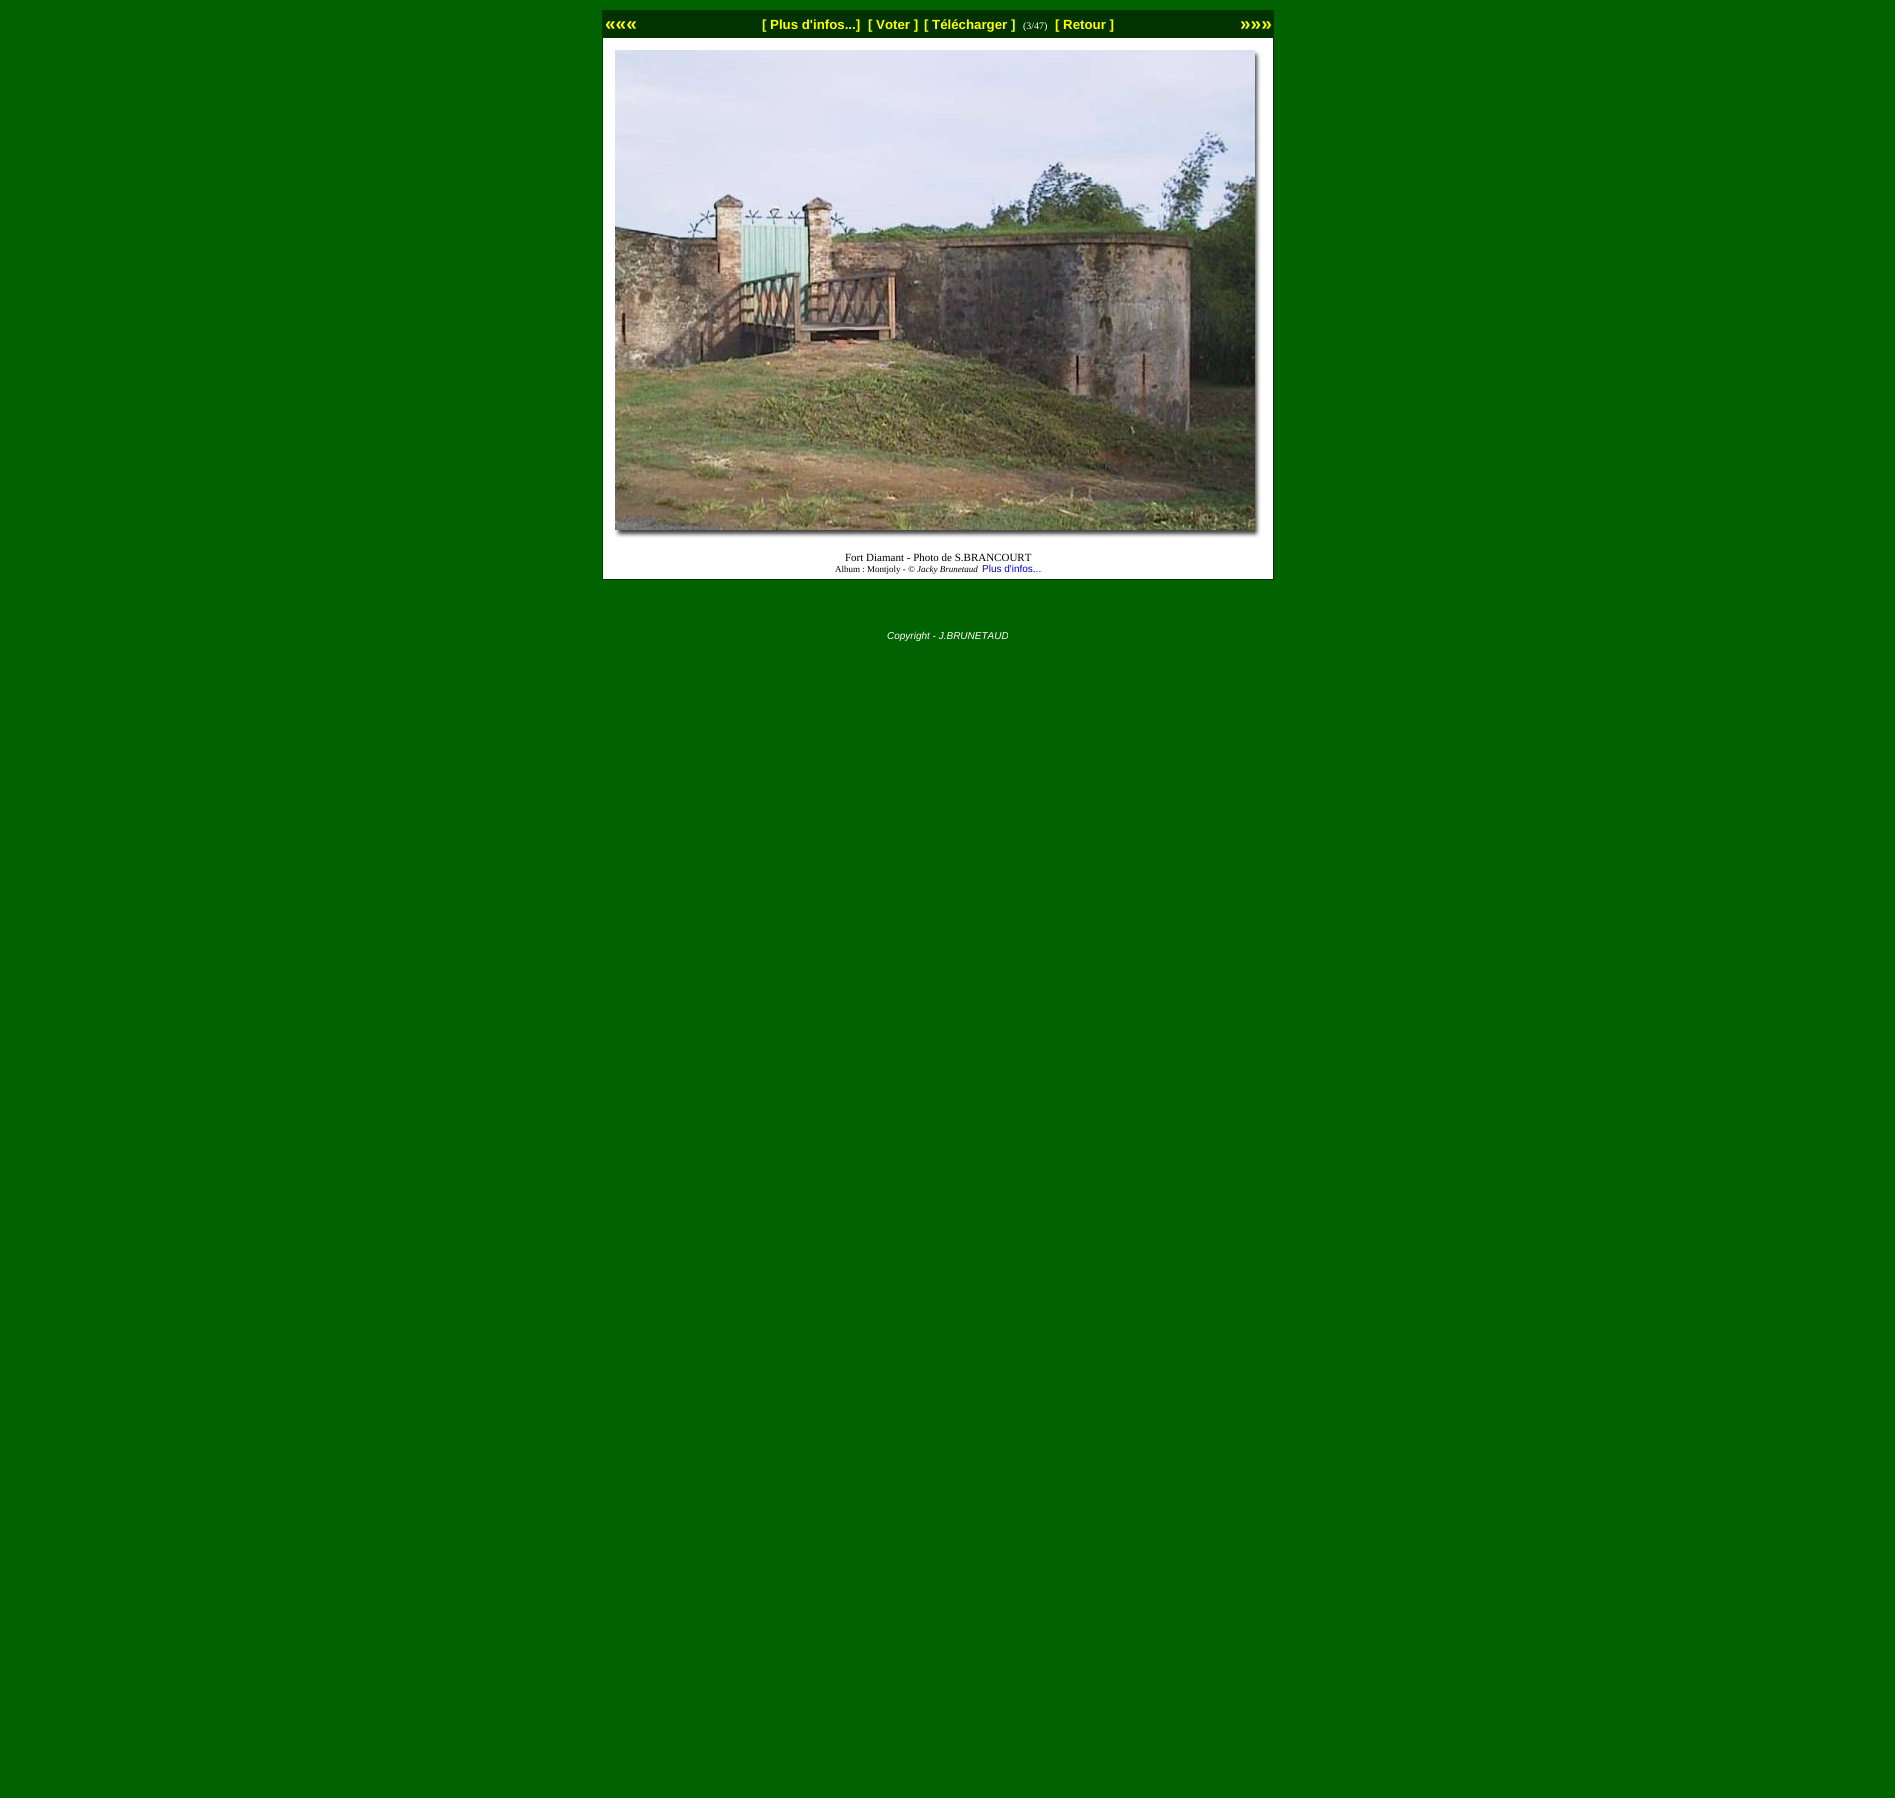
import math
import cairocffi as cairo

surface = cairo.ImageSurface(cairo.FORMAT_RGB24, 1895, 1798)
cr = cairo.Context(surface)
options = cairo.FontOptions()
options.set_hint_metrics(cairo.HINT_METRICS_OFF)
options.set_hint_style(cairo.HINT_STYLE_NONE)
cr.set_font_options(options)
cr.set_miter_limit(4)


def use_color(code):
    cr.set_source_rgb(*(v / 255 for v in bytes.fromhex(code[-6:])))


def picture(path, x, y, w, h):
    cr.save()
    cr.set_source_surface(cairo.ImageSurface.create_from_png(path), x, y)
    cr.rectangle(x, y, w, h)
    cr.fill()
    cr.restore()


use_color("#006300")
cr.paint()
use_color("#003300")
cr.rectangle(602, 10, 672, 570)
cr.fill()
cr.select_font_face("Liberation Sans", cairo.FONT_SLANT_NORMAL, cairo.FONT_WEIGHT_BOLD)
cr.set_font_size(19)
use_color("#ffff00")
cr.move_to(605, 30)
cr.show_text("«««")
cr.set_font_size(13.25)
cr.move_to(762, 29)
cr.show_text("[ Plus d'infos...]")
cr.move_to(868, 29)
cr.show_text("[ Voter ]")
cr.move_to(924, 29)
cr.show_text("[ Télécharger ]")
cr.select_font_face("Liberation Serif")
cr.set_font_size(10)
use_color("#ffffff")
cr.move_to(1023, 29)
cr.show_text("(3/47)")
cr.select_font_face("Liberation Sans", cairo.FONT_SLANT_NORMAL, cairo.FONT_WEIGHT_BOLD)
cr.set_font_size(13.25)
use_color("#ffff00")
cr.move_to(1055, 29)
cr.show_text("[ Retour ]")
cr.set_font_size(19)
cr.move_to(1240, 30)
cr.show_text("»»»")
use_color("#ffffff")
cr.rectangle(603, 38, 670, 541)
cr.fill()
picture("img1.png", 615, 50, 640, 480)
picture("img2.png", 1255, 50, 6, 8)
picture("img3.png", 1255, 58, 6, 472)
picture("img4.png", 615, 530, 7, 8)
picture("img5.png", 622, 530, 633, 8)
picture("img6.png", 1255, 530, 5, 8)
cr.select_font_face("Liberation Serif")
cr.set_font_size(11)
use_color("#000000")
cr.move_to(845, 561)
cr.show_text("Fort Diamant - Photo de S.BRANCOURT")
cr.set_font_size(9)
cr.move_to(835, 572)
cr.show_text("Album : Montjoly -")
cr.select_font_face("Liberation Serif", cairo.FONT_SLANT_ITALIC)
cr.move_to(908, 572)
cr.show_text("© Jacky Brunetaud")
cr.select_font_face("Liberation Sans")
cr.set_font_size(10)
use_color("#0000cc")
cr.move_to(982, 572)
cr.show_text("Plus d'infos...")
cr.select_font_face("Liberation Sans", cairo.FONT_SLANT_ITALIC)
use_color("#ffffff")
cr.move_to(887, 639)
cr.show_text("Copyright - J.BRUNETAUD")
surface.write_to_png("result.png")
